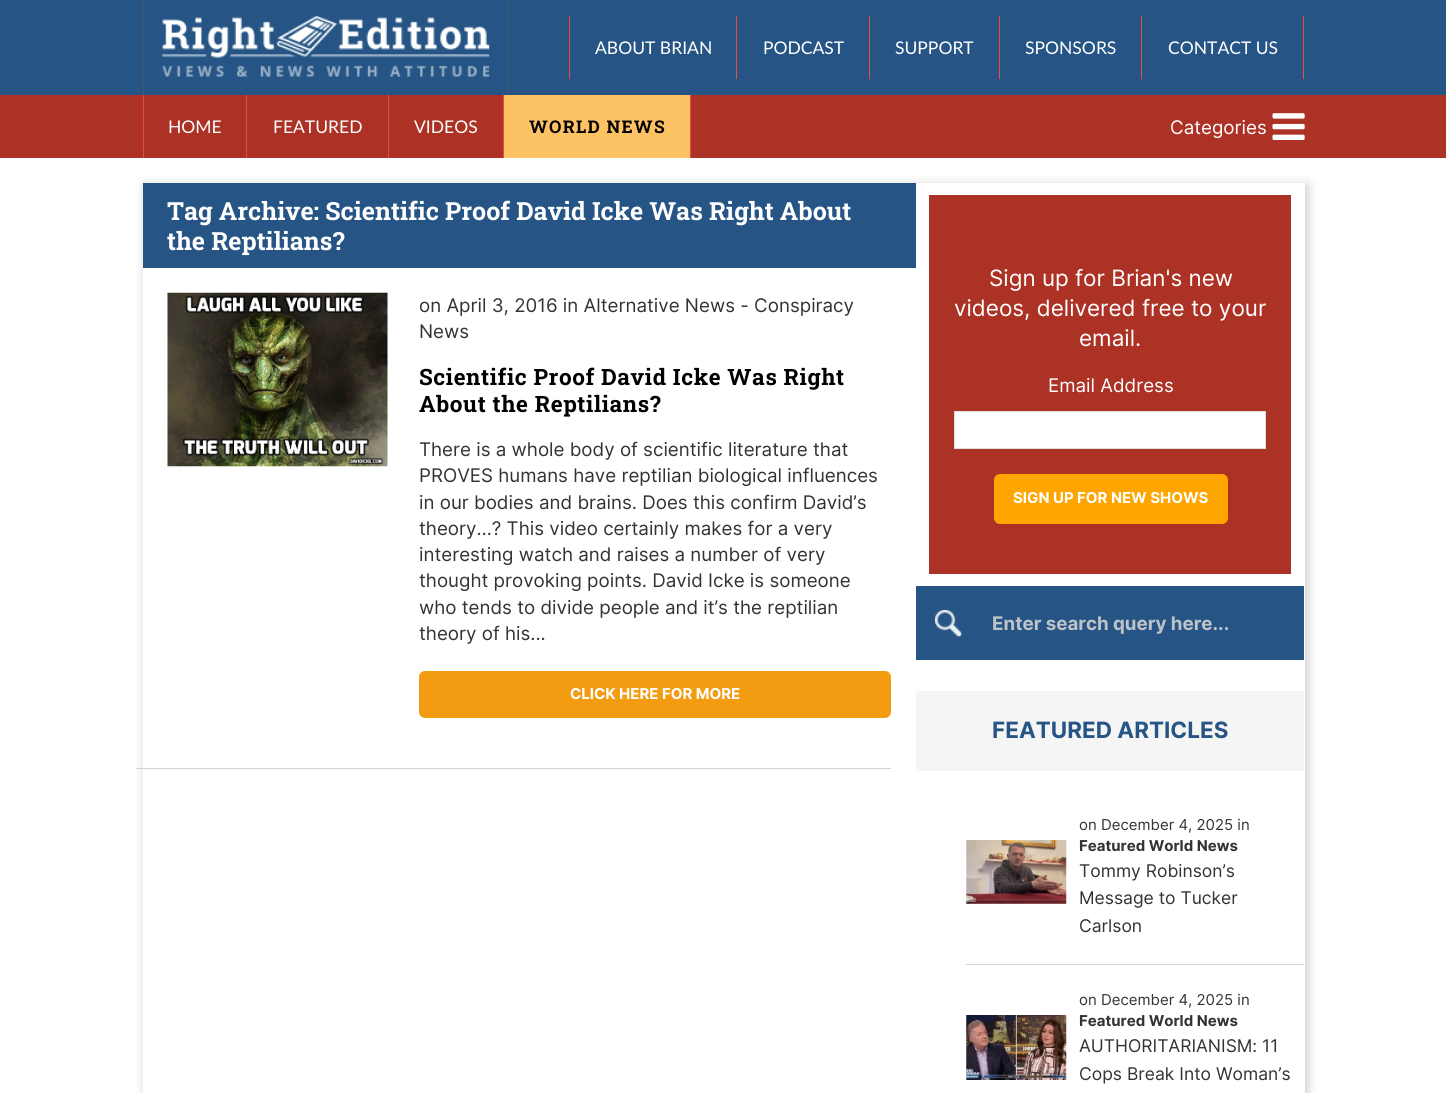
import math
import cairocffi as cairo

surface = cairo.ImageSurface(cairo.FORMAT_RGB24, 1446, 1093)
cr = cairo.Context(surface)
options = cairo.FontOptions()
options.set_hint_metrics(cairo.HINT_METRICS_OFF)
options.set_hint_style(cairo.HINT_STYLE_NONE)
cr.set_font_options(options)
cr.set_miter_limit(4)


def use_color(code):
    cr.set_source_rgb(*(v / 255 for v in bytes.fromhex(code[-6:])))


def spaced_text(x, y, s, letter, word):
    cr.move_to(x, y)
    for ch in s:
        cr.show_text(ch)
        cr.rel_move_to(letter + word * (ch == ' '), 0)


def round_rect(x, y, w, h, r):
    cr.new_sub_path()
    for i, (u, v) in enumerate([(x + w - r, y + h - r), (x + r, y + h - r), (x + r, y + r), (x + w - r, y + r)]):
        cr.arc(u, v, r, i * math.pi / 2, (i + 1) * math.pi / 2)
    cr.close_path()


def shadow(x, y, w, h, r, blur, alpha):
    cr.push_group_with_content(cairo.CONTENT_ALPHA)
    cr.set_operator(cairo.OPERATOR_SOURCE)
    for i in range(15, -16, -2):
        e = blur * i / 6
        if min(w, h) + 2 * e > 0:
            cr.set_source_rgba(0, 0, 0, alpha * math.erfc((i - 1) / 8.5) / 2)
            round_rect(x - e, y - e, w + 2 * e, h + 2 * e, max(0, min(r + e + blur * .6, min(w, h) / 2 + e)))
            cr.fill()
    cr.mask(cr.pop_group())


def picture(path, x, y, w, h):
    cr.save()
    cr.set_source_surface(cairo.ImageSurface.create_from_png(path), x, y)
    cr.rectangle(x, y, w, h)
    cr.fill()
    cr.restore()


use_color("#ffffff")
cr.paint()
use_color("#265585")
cr.rectangle(0, 0, 1446, 95)
cr.fill()
use_color("#40576d")
cr.rectangle(143, 0, 1, 95)
cr.fill()
picture("img1.png", 162, 16, 328, 61)
cr.rectangle(508, 0, 1, 95)
cr.fill()
use_color("#e74c3c")
cr.rectangle(736, 16, 1, 63)
cr.fill()
cr.rectangle(569, 16, 1, 63)
cr.fill()
cr.select_font_face("Lato")
cr.set_font_size(17.5)
use_color("#ffffff")
cr.move_to(595, 54)
cr.show_text("ABOUT BRIAN")
use_color("#e74c3c")
cr.rectangle(869, 16, 1, 63)
cr.fill()
use_color("#ffffff")
cr.move_to(763, 54)
cr.show_text("PODCAST")
use_color("#e74c3c")
cr.rectangle(999, 16, 1, 63)
cr.fill()
use_color("#ffffff")
cr.move_to(895, 54)
cr.show_text("SUPPORT")
use_color("#e74c3c")
cr.rectangle(1141, 16, 1, 63)
cr.fill()
use_color("#ffffff")
cr.move_to(1025, 54)
cr.show_text("SPONSORS")
use_color("#e74c3c")
cr.rectangle(1303, 16, 1, 63)
cr.fill()
use_color("#ffffff")
cr.move_to(1168, 54)
cr.show_text("CONTACT US")
use_color("#ad3226")
cr.rectangle(0, 95, 1446, 63)
cr.fill()
use_color("#e74c3c")
cr.rectangle(246, 95, 1, 63)
cr.fill()
cr.rectangle(143, 95, 1, 63)
cr.fill()
use_color("#ffffff")
cr.move_to(168, 133)
cr.show_text("HOME")
use_color("#e74c3c")
cr.rectangle(388, 95, 1, 63)
cr.fill()
use_color("#ffffff")
cr.move_to(273, 133)
cr.show_text("FEATURED")
use_color("#e74c3c")
cr.rectangle(503, 95, 1, 63)
cr.fill()
use_color("#ffffff")
cr.move_to(414, 133)
cr.show_text("VIDEOS")
use_color("#fdc264")
cr.rectangle(504, 95, 186, 63)
cr.fill()
use_color("#e74c3c")
cr.rectangle(690, 95, 1, 63)
cr.fill()
cr.select_font_face("Roboto Slab", cairo.FONT_SLANT_NORMAL, cairo.FONT_WEIGHT_BOLD)
use_color("#000000")
spaced_text(529, 133, "WORLD NEWS", 1.25, 0)
cr.select_font_face("Inter")
cr.set_font_size(18.75)
use_color("#ffffff")
cr.move_to(1170, 134)
cr.show_text("Categories")
picture("img2.png", 1272, 113, 33, 27)
cr.save()
cr.set_fill_rule(cairo.FILL_RULE_EVEN_ODD)
cr.new_path()
cr.move_to(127, 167)
cr.line_to(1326, 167)
cr.line_to(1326, 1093)
cr.line_to(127, 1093)
cr.close_path()
cr.move_to(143, 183)
cr.line_to(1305, 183)
cr.line_to(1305, 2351)
cr.line_to(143, 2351)
cr.close_path()
cr.clip()
use_color("#000000")
shadow(145, 185, 1163, 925, 0, 5.5, 0.2)
cr.restore()
use_color("#265585")
cr.rectangle(143, 183, 773, 85)
cr.fill()
cr.select_font_face("Roboto Slab", cairo.FONT_SLANT_NORMAL, cairo.FONT_WEIGHT_BOLD)
cr.set_font_size(25)
use_color("#ffffff")
cr.move_to(167, 220)
cr.show_text("Tag Archive: Scientific Proof David Icke Was Right About")
cr.move_to(167, 250)
cr.show_text("the Reptilians?")
use_color("#d3d3d3")
cr.rectangle(136, 768, 755, 1)
cr.fill()
picture("img3.png", 167, 292, 221, 175)
cr.select_font_face("Inter")
cr.set_font_size(18.75)
use_color("#333333")
cr.move_to(419, 312)
cr.show_text("on April 3, 2016 in Alternative News - Conspiracy")
cr.move_to(419, 338)
cr.show_text("News")
cr.select_font_face("Roboto Slab", cairo.FONT_SLANT_NORMAL, cairo.FONT_WEIGHT_BOLD)
cr.set_font_size(22.5)
use_color("#000000")
spaced_text(419, 385, "Scientific Proof David Icke Was Right", 0.6, 0)
spaced_text(419, 412, "About the Reptilians?", 0.6, 0)
cr.select_font_face("Inter")
cr.set_font_size(18.75)
use_color("#333333")
cr.move_to(419, 456)
cr.show_text("There is a whole body of scientific literature that")
cr.move_to(419, 482)
cr.show_text("PROVES humans have reptilian biological influences")
cr.move_to(419, 509)
cr.show_text("in our bodies and brains. Does this confirm David’s")
cr.move_to(419, 535)
cr.show_text("theory…? This video certainly makes for a very")
cr.move_to(419, 561)
cr.show_text("interesting watch and raises a number of very")
cr.move_to(419, 587)
cr.show_text("thought provoking points. David Icke is someone")
cr.move_to(419, 614)
cr.show_text("who tends to divide people and it’s the reptilian")
cr.move_to(419, 640)
cr.show_text("theory of his...")
use_color("#f39c12")
round_rect(419, 671, 472, 47, 6)
cr.fill()
cr.select_font_face("Inter", cairo.FONT_SLANT_NORMAL, cairo.FONT_WEIGHT_BOLD)
cr.set_font_size(15)
use_color("#ffffff")
cr.move_to(570, 699)
cr.show_text("CLICK HERE FOR MORE")
use_color("#ad3226")
cr.rectangle(929, 195, 362, 379)
cr.fill()
cr.select_font_face("Inter")
cr.set_font_size(22.5)
use_color("#ffffff")
cr.move_to(989, 286)
cr.show_text("Sign up for Brian's new")
cr.move_to(954, 316)
cr.show_text("videos, delivered free to your")
cr.move_to(1079, 346)
cr.show_text("email.")
cr.set_font_size(18.75)
cr.move_to(1048, 392)
cr.show_text("Email Address")
cr.rectangle(954.5, 411.5, 311, 37)
cr.fill_preserve()
use_color("#dddddd")
cr.set_line_width(1)
cr.stroke()
use_color("#ffa500")
round_rect(994, 474, 234, 50, 6)
cr.fill()
cr.select_font_face("Inter", cairo.FONT_SLANT_NORMAL, cairo.FONT_WEIGHT_BOLD)
cr.set_font_size(15)
use_color("#ffffff")
cr.move_to(1013, 503)
cr.show_text("SIGN UP FOR NEW SHOWS")
use_color("#265585")
cr.rectangle(916, 586, 388, 74)
cr.fill()
picture("img4.png", 935, 610, 27, 27)
cr.set_font_size(18.75)
use_color("#bdc3c7")
cr.move_to(992, 630)
cr.show_text("Enter search query here...")
use_color("#f5f5f5")
cr.rectangle(916, 691, 388, 80)
cr.fill()
cr.set_font_size(22.5)
use_color("#265585")
cr.move_to(992, 738)
cr.show_text("FEATURED ARTICLES")
use_color("#d3d3d3")
cr.rectangle(966, 964, 338, 1)
cr.fill()
picture("img5.png", 966, 840, 101, 64)
cr.select_font_face("Inter")
cr.set_font_size(15)
use_color("#333333")
cr.move_to(1079, 830)
cr.show_text("on December 4, 2025 in")
cr.select_font_face("Inter", cairo.FONT_SLANT_NORMAL, cairo.FONT_WEIGHT_BOLD)
cr.move_to(1079, 851)
cr.show_text("Featured World News")
cr.select_font_face("Inter")
cr.set_font_size(17.5)
cr.move_to(1079, 877)
cr.show_text("Tommy Robinson’s")
cr.move_to(1079, 904)
cr.show_text("Message to Tucker")
cr.move_to(1079, 932)
cr.show_text("Carlson")
picture("img6.png", 966, 1015, 101, 65)
cr.set_font_size(15)
cr.move_to(1079, 1005)
cr.show_text("on December 4, 2025 in")
cr.select_font_face("Inter", cairo.FONT_SLANT_NORMAL, cairo.FONT_WEIGHT_BOLD)
cr.move_to(1079, 1026)
cr.show_text("Featured World News")
cr.select_font_face("Inter")
cr.set_font_size(17.5)
cr.move_to(1079, 1052)
cr.show_text("AUTHORITARIANISM: 11")
cr.move_to(1079, 1080)
cr.show_text("Cops Break Into Woman’s")
surface.write_to_png("result.png")
